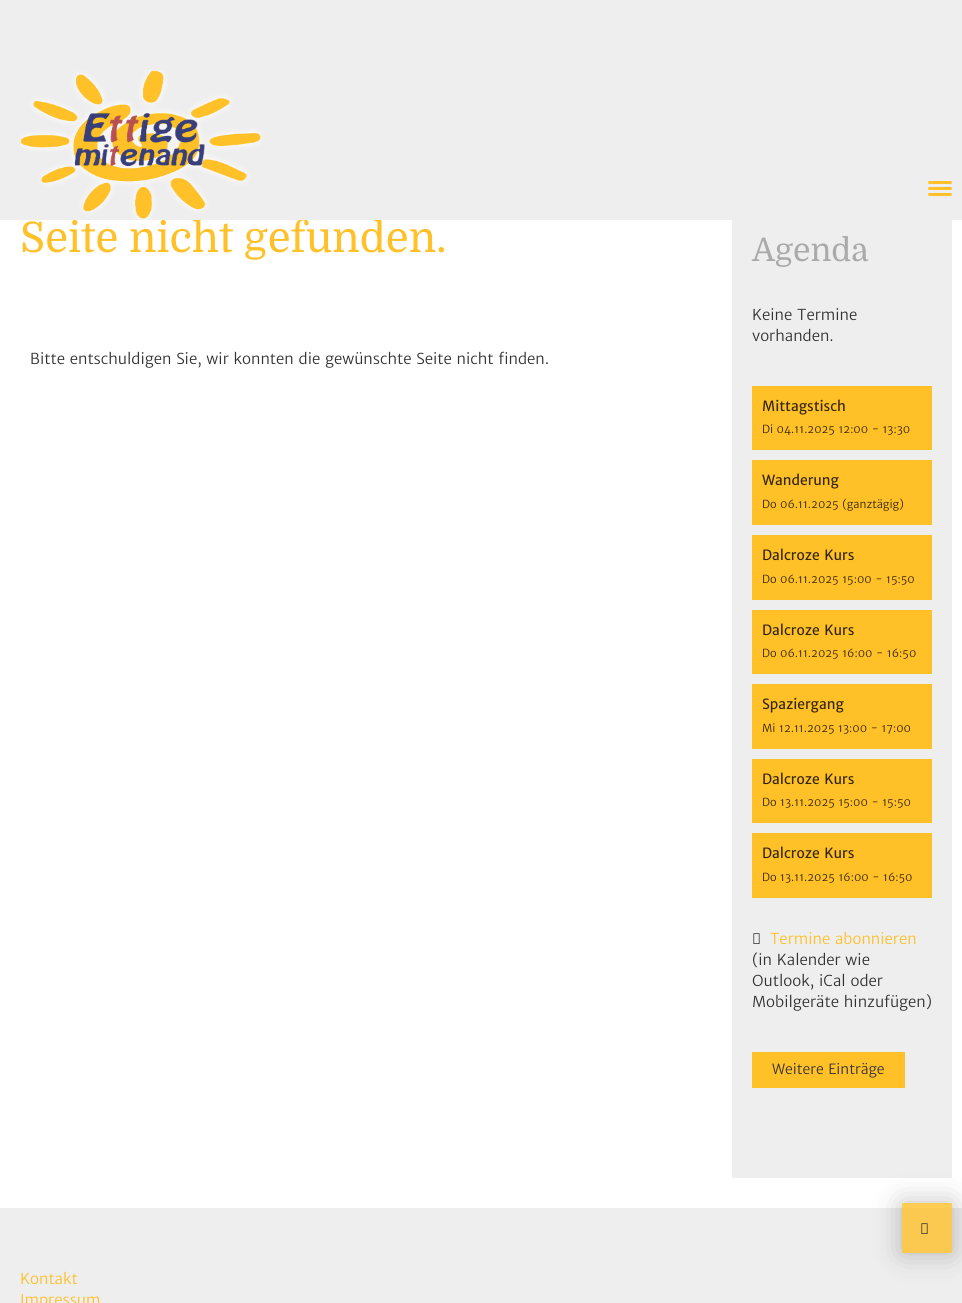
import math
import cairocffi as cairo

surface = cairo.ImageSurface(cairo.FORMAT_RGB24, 962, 1303)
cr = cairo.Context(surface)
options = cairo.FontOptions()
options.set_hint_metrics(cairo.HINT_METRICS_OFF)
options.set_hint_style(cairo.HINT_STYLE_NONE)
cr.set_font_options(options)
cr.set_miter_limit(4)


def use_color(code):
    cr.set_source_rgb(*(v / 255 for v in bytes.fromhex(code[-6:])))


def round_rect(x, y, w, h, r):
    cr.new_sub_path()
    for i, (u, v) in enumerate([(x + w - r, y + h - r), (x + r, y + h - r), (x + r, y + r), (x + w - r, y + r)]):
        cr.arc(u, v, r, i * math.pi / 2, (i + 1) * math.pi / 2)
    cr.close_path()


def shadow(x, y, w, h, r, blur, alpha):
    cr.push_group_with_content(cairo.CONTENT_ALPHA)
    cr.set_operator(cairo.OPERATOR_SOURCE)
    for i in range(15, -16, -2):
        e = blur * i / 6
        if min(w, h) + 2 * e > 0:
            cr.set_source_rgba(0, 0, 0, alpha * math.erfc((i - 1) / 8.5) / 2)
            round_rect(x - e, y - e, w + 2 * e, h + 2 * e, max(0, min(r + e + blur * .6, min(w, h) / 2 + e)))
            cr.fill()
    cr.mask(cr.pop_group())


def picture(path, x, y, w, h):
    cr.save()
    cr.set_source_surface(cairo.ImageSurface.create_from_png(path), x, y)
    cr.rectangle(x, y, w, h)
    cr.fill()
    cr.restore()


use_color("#ffffff")
cr.paint()
use_color("#ffcd53")
cr.rectangle(902, 1203, 50, 5)
cr.fill()
cr.select_font_face("Domine")
cr.set_font_size(42)
use_color("#ffc028")
cr.move_to(20, 252)
cr.show_text("Seite nicht gefunden.")
use_color("#eeeeee")
cr.rectangle(0, 0, 962, 220)
cr.fill()
picture("img1.png", 20, 70, 242, 150)
use_color("#ffc028")
round_rect(928, 181, 24, 3, 1.5)
cr.fill()
round_rect(928, 187, 24, 3, 1.5)
cr.fill()
round_rect(928, 193, 24, 3, 1.5)
cr.fill()
cr.select_font_face("Merriweather Sans Light")
cr.set_font_size(15)
use_color("#333333")
cr.move_to(30, 364)
cr.show_text("Bitte entschuldigen Sie, wir konnten die gewünschte Seite nicht finden.")
use_color("#eeeeee")
cr.rectangle(732, 220, 220, 958)
cr.fill()
cr.select_font_face("Domine")
cr.set_font_size(32)
use_color("#aaaaaa")
cr.move_to(752, 261)
cr.show_text("Agenda")
cr.select_font_face("Merriweather Sans Light")
cr.set_font_size(15)
use_color("#333333")
cr.move_to(752, 320)
cr.show_text("Keine Termine")
cr.move_to(752, 341)
cr.show_text("vorhanden.")
use_color("#ffc028")
cr.rectangle(752, 386, 180, 1)
cr.fill()
cr.rectangle(752, 387, 180, 63)
cr.fill()
cr.select_font_face("Merriweather Sans")
cr.set_font_size(14)
use_color("#332608")
cr.move_to(762, 411)
cr.show_text("Mittagstisch")
cr.select_font_face("Merriweather Sans Light")
cr.set_font_size(11)
cr.move_to(762, 433)
cr.show_text("Di 04.11.2025 12:00 - 13:30")
use_color("#ffc028")
cr.rectangle(752, 460, 180, 1)
cr.fill()
cr.rectangle(752, 461, 180, 64)
cr.fill()
cr.select_font_face("Merriweather Sans")
cr.set_font_size(14)
use_color("#332608")
cr.move_to(762, 485)
cr.show_text("Wanderung")
cr.select_font_face("Merriweather Sans Light")
cr.set_font_size(11)
cr.move_to(762, 508)
cr.show_text("Do 06.11.2025 (ganztägig)")
use_color("#ffc028")
cr.rectangle(752, 535, 180, 1)
cr.fill()
cr.rectangle(752, 536, 180, 64)
cr.fill()
cr.select_font_face("Merriweather Sans")
cr.set_font_size(14)
use_color("#332608")
cr.move_to(762, 560)
cr.show_text("Dalcroze Kurs")
cr.select_font_face("Merriweather Sans Light")
cr.set_font_size(11)
cr.move_to(762, 583)
cr.show_text("Do 06.11.2025 15:00 - 15:50")
use_color("#ffc028")
cr.rectangle(752, 610, 180, 1)
cr.fill()
cr.rectangle(752, 611, 180, 63)
cr.fill()
cr.select_font_face("Merriweather Sans")
cr.set_font_size(14)
use_color("#332608")
cr.move_to(762, 635)
cr.show_text("Dalcroze Kurs")
cr.select_font_face("Merriweather Sans Light")
cr.set_font_size(11)
cr.move_to(762, 657)
cr.show_text("Do 06.11.2025 16:00 - 16:50")
use_color("#ffc028")
cr.rectangle(752, 684, 180, 1)
cr.fill()
cr.rectangle(752, 685, 180, 64)
cr.fill()
cr.select_font_face("Merriweather Sans")
cr.set_font_size(14)
use_color("#332608")
cr.move_to(762, 709)
cr.show_text("Spaziergang")
cr.select_font_face("Merriweather Sans Light")
cr.set_font_size(11)
cr.move_to(762, 732)
cr.show_text("Mi 12.11.2025 13:00 - 17:00")
use_color("#ffc028")
cr.rectangle(752, 759, 180, 1)
cr.fill()
cr.rectangle(752, 760, 180, 63)
cr.fill()
cr.select_font_face("Merriweather Sans")
cr.set_font_size(14)
use_color("#332608")
cr.move_to(762, 784)
cr.show_text("Dalcroze Kurs")
cr.select_font_face("Merriweather Sans Light")
cr.set_font_size(11)
cr.move_to(762, 806)
cr.show_text("Do 13.11.2025 15:00 - 15:50")
use_color("#ffc028")
cr.rectangle(752, 833, 180, 1)
cr.fill()
cr.rectangle(752, 834, 180, 64)
cr.fill()
cr.select_font_face("Merriweather Sans")
cr.set_font_size(14)
use_color("#332608")
cr.move_to(762, 858)
cr.show_text("Dalcroze Kurs")
cr.select_font_face("Merriweather Sans Light")
cr.set_font_size(11)
cr.move_to(762, 881)
cr.show_text("Do 13.11.2025 16:00 - 16:50")
picture("img2.png", 753, 933, 7, 11)
cr.set_font_size(15)
use_color("#ffc028")
cr.move_to(770, 944)
cr.show_text("Termine abonnieren")
use_color("#333333")
cr.move_to(752, 965)
cr.show_text("(in Kalender wie")
cr.move_to(752, 986)
cr.show_text("Outlook, iCal oder")
cr.move_to(752, 1007)
cr.show_text("Mobilgeräte hinzufügen)")
use_color("#ffc028")
cr.rectangle(752, 1052, 153, 36)
cr.fill()
cr.set_font_size(14)
use_color("#333333")
cr.move_to(772, 1074)
cr.show_text("Weitere Einträge")
use_color("#eeeeee")
cr.rectangle(0, 1208, 962, 95)
cr.fill()
use_color("#fcc950")
cr.rectangle(902, 1208, 50, 45)
cr.fill()
cr.set_font_size(15)
use_color("#ffc028")
cr.move_to(20, 1284)
cr.show_text("Kontakt")
cr.move_to(20, 1305)
cr.show_text("Impressum")
cr.save()
cr.set_fill_rule(cairo.FILL_RULE_EVEN_ODD)
cr.new_path()
cr.move_to(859, 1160)
cr.line_to(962, 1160)
cr.line_to(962, 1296)
cr.line_to(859, 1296)
cr.close_path()
cr.move_to(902, 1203)
cr.line_to(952, 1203)
cr.line_to(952, 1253)
cr.line_to(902, 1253)
cr.close_path()
cr.clip()
use_color("#000000")
shadow(902, 1203, 50, 50, 0, 14, 0.25)
cr.restore()
picture("img3.png", 921, 1223, 7, 11)
surface.write_to_png("result.png")
